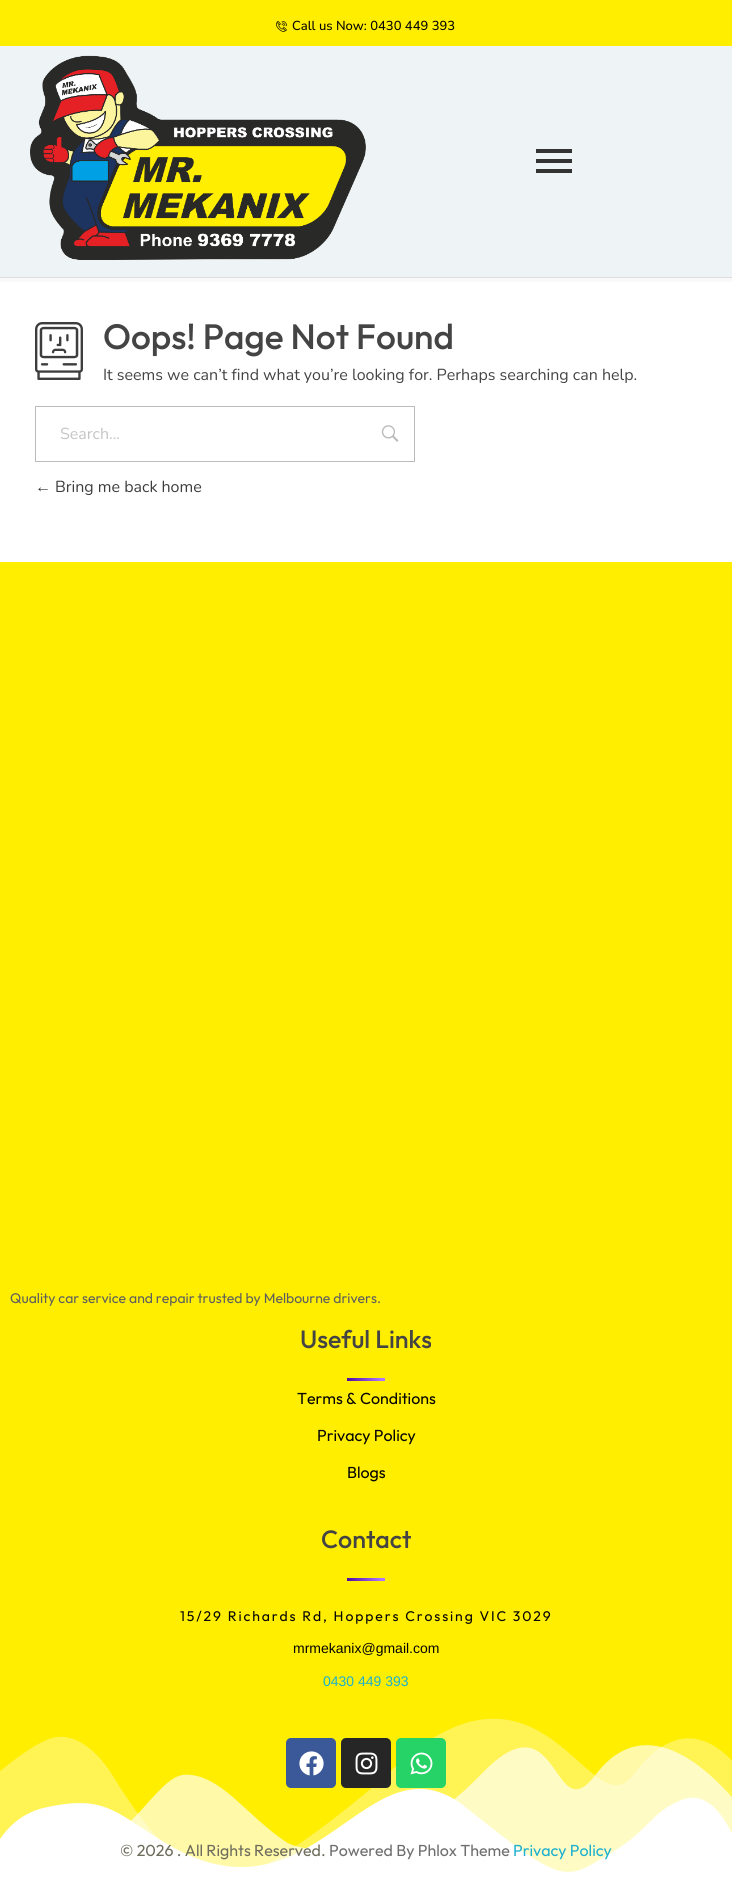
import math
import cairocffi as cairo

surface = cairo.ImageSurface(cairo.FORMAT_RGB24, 732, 1888)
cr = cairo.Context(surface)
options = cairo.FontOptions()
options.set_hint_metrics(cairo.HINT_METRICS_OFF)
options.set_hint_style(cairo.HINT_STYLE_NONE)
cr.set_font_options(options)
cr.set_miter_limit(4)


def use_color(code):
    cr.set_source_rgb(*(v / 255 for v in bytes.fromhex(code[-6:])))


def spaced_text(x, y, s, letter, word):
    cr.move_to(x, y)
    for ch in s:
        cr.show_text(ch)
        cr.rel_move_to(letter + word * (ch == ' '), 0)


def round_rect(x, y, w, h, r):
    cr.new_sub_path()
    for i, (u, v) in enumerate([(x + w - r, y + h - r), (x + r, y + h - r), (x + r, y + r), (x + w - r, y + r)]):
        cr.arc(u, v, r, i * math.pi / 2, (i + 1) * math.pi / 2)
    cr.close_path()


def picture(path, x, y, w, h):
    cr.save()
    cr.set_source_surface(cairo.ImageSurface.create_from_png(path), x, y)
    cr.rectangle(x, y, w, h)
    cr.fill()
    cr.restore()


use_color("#ffffff")
cr.paint()
cr.set_source_rgba(0.133, 0.133, 0.133, 0.03)
cr.rectangle(0, 278, 732, 4)
cr.fill()
use_color("#dedede")
cr.rectangle(0, 277, 732, 1)
cr.fill()
use_color("#ffee00")
cr.rectangle(0, 0, 732, 46)
cr.fill()
picture("img1.png", 276, 21, 11, 11)
cr.select_font_face("Nunito Medium")
cr.set_font_size(13)
use_color("#050505")
cr.move_to(292, 30)
cr.show_text("Call us Now: 0430 449 393")
use_color("#eef3f5")
cr.rectangle(0, 46, 732, 231)
cr.fill()
picture("img2.png", 30, 55, 336, 205)
use_color("#333333")
cr.rectangle(536, 149, 36, 4)
cr.fill()
cr.rectangle(536, 159, 36, 4)
cr.fill()
cr.rectangle(536, 169, 36, 4)
cr.fill()
picture("img3.png", 35, 322, 48, 58)
cr.select_font_face("Outfit Medium")
cr.set_font_size(35.25)
use_color("#444444")
cr.move_to(103, 349)
cr.show_text("Oops! Page Not Found")
cr.select_font_face("Nunito")
cr.set_font_size(16)
cr.move_to(103, 380)
cr.show_text("It seems we can’t find what you’re looking for. Perhaps searching can help.")
cr.rectangle(35.5, 406.5, 379, 55)
use_color("#bbbbbb")
cr.set_line_width(1)
cr.stroke()
use_color("#c5c5c5")
cr.move_to(60, 439)
cr.show_text("Search...")
picture("img4.png", 381, 425, 18, 17)
cr.select_font_face("Liberation Sans")
use_color("#3d3d3d")
cr.move_to(35, 492)
cr.show_text("←")
cr.select_font_face("Nunito")
cr.move_to(55, 492)
cr.show_text("Bring me back home")
use_color("#ffee00")
cr.rectangle(0, 562, 732, 1310)
cr.fill()
cr.select_font_face("Outfit")
cr.set_font_size(14)
use_color("#5e5e5e")
cr.move_to(10, 1303)
cr.show_text("Quality car service and repair trusted by Melbourne drivers.")
cr.select_font_face("Outfit Medium")
cr.set_font_size(25)
use_color("#444444")
cr.move_to(300, 1348)
cr.show_text("Useful Links")
gradient = cairo.LinearGradient(385, 1380, 347, 1380)
gradient.add_color_stop_rgba(0.09, 0.678, 0.467, 1, 1)
gradient.add_color_stop_rgba(1, 0.302, 0.039, 0.643, 1)
cr.set_source(gradient)
cr.rectangle(347, 1378, 38, 3)
cr.fill()
cr.select_font_face("Outfit")
cr.set_font_size(16)
use_color("#050505")
cr.move_to(297, 1404)
cr.show_text("Terms & Conditions")
cr.move_to(317, 1441)
cr.show_text("Privacy Policy")
cr.move_to(347, 1478)
cr.show_text("Blogs")
cr.select_font_face("Outfit Medium")
cr.set_font_size(25)
use_color("#444444")
cr.move_to(321, 1548)
cr.show_text("Contact")
gradient = cairo.LinearGradient(385, 1580, 347, 1580)
gradient.add_color_stop_rgba(0.09, 0.678, 0.467, 1, 1)
gradient.add_color_stop_rgba(1, 0.302, 0.039, 0.643, 1)
cr.set_source(gradient)
cr.rectangle(347, 1578, 38, 3)
cr.fill()
cr.select_font_face("Outfit")
cr.set_font_size(14)
use_color("#050505")
spaced_text(180, 1621, "15/29 Richards Rd, Hoppers Crossing VIC 3029", 1.9, 0)
cr.select_font_face("Liberation Sans")
cr.move_to(293, 1653)
cr.show_text("mrmekanix@gmail.com")
use_color("#1bb0ce")
cr.move_to(323, 1686)
cr.show_text("0430 449 393")
picture("img8.png", 0, 1718, 732, 170)
use_color("#3b5998")
round_rect(286, 1738, 50, 50, 5)
cr.fill()
picture("img5.png", 299, 1751, 25, 25)
use_color("#262626")
round_rect(341, 1738, 50, 50, 5)
cr.fill()
picture("img6.png", 355, 1752, 23, 23)
use_color("#25d366")
round_rect(396, 1738, 50, 50, 5)
cr.fill()
picture("img7.png", 410, 1752, 23, 23)
cr.select_font_face("Outfit")
cr.set_font_size(16)
use_color("#6e6d5d")
cr.move_to(120, 1856)
cr.show_text("© 2026 . All Rights Reserved.")
use_color("#6e6e6e")
cr.move_to(329, 1856)
cr.show_text("Powered By Phlox Theme")
use_color("#1bb0ce")
cr.move_to(513, 1856)
cr.show_text("Privacy Policy")
surface.write_to_png("result.png")
